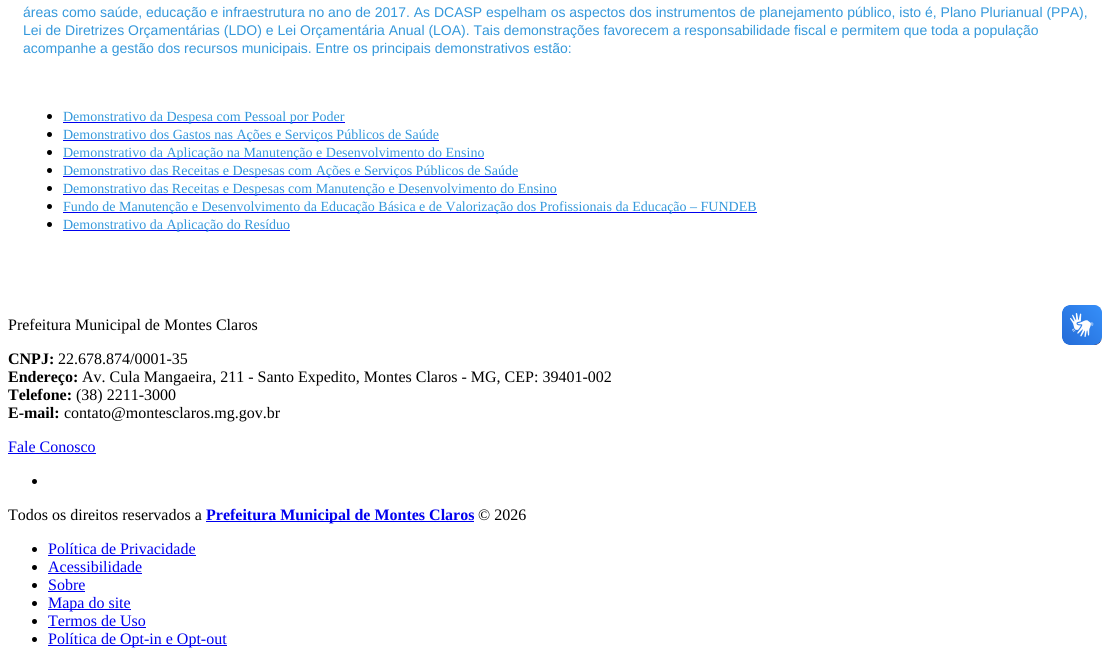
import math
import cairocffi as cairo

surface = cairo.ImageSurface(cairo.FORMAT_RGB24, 1112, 650)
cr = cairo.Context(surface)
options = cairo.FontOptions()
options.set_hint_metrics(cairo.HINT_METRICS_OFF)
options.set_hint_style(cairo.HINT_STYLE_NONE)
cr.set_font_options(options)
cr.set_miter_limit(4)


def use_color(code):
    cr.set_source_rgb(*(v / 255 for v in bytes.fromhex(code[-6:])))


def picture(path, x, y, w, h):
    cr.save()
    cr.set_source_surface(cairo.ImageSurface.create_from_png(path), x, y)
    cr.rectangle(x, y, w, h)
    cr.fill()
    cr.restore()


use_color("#ffffff")
cr.paint()
cr.select_font_face("Liberation Sans")
cr.set_font_size(14)
use_color("#3498db")
cr.move_to(23, 17)
cr.show_text("áreas como saúde, educação e infraestrutura no ano de 2017. As DCASP espelham os aspectos dos instrumentos de planejamento público, isto é, Plano Plurianual (PPA),")
cr.move_to(23, 35)
cr.show_text("Lei de Diretrizes Orçamentárias (LDO) e Lei Orçamentária Anual (LOA). Tais demonstrações favorecem a responsabilidade fiscal e permitem que toda a população")
cr.move_to(23, 53)
cr.show_text("acompanhe a gestão dos recursos municipais. Entre os principais demonstrativos estão:")
use_color("#000000")
cr.new_path()
cr.arc(49.5, 116.5, 2.5, 0, 2 * math.pi)
cr.fill()
use_color("#0000ee")
cr.rectangle(63, 122, 282, 1)
cr.fill()
cr.select_font_face("Liberation Serif")
use_color("#3498db")
cr.move_to(63, 121)
cr.show_text("Demonstrativo da Despesa com Pessoal por Poder")
use_color("#000000")
cr.new_path()
cr.arc(49.5, 134.5, 2.5, 0, 2 * math.pi)
cr.fill()
use_color("#0000ee")
cr.rectangle(63, 140, 376, 1)
cr.fill()
use_color("#3498db")
cr.move_to(63, 139)
cr.show_text("Demonstrativo dos Gastos nas Ações e Serviços Públicos de Saúde")
use_color("#000000")
cr.new_path()
cr.arc(49.5, 152.5, 2.5, 0, 2 * math.pi)
cr.fill()
use_color("#0000ee")
cr.rectangle(63, 158, 421, 1)
cr.fill()
use_color("#3498db")
cr.move_to(63, 157)
cr.show_text("Demonstrativo da Aplicação na Manutenção e Desenvolvimento do Ensino")
use_color("#000000")
cr.new_path()
cr.arc(49.5, 170.5, 2.5, 0, 2 * math.pi)
cr.fill()
use_color("#0000ee")
cr.rectangle(63, 176, 455, 1)
cr.fill()
use_color("#3498db")
cr.move_to(63, 175)
cr.show_text("Demonstrativo das Receitas e Despesas com Ações e Serviços Públicos de Saúde")
use_color("#000000")
cr.new_path()
cr.arc(49.5, 188.5, 2.5, 0, 2 * math.pi)
cr.fill()
use_color("#0000ee")
cr.rectangle(63, 194, 494, 1)
cr.fill()
use_color("#3498db")
cr.move_to(63, 193)
cr.show_text("Demonstrativo das Receitas e Despesas com Manutenção e Desenvolvimento do Ensino")
use_color("#000000")
cr.new_path()
cr.arc(49.5, 206.5, 2.5, 0, 2 * math.pi)
cr.fill()
use_color("#0000ee")
cr.rectangle(63, 212, 694, 1)
cr.fill()
use_color("#3498db")
cr.move_to(63, 211)
cr.show_text("Fundo de Manutenção e Desenvolvimento da Educação Básica e de Valorização dos Profissionais da Educação – FUNDEB")
use_color("#000000")
cr.new_path()
cr.arc(49.5, 224.5, 2.5, 0, 2 * math.pi)
cr.fill()
use_color("#0000ee")
cr.rectangle(63, 230, 227, 1)
cr.fill()
use_color("#3498db")
cr.move_to(63, 229)
cr.show_text("Demonstrativo da Aplicação do Resíduo")
cr.set_font_size(16)
use_color("#000000")
cr.move_to(8, 330)
cr.show_text("Prefeitura Municipal de Montes Claros")
cr.select_font_face("Liberation Serif", cairo.FONT_SLANT_NORMAL, cairo.FONT_WEIGHT_BOLD)
cr.move_to(8, 364)
cr.show_text("CNPJ:")
cr.select_font_face("Liberation Serif")
cr.move_to(58, 364)
cr.show_text("22.678.874/0001-35")
cr.select_font_face("Liberation Serif", cairo.FONT_SLANT_NORMAL, cairo.FONT_WEIGHT_BOLD)
cr.move_to(8, 382)
cr.show_text("Endereço:")
cr.select_font_face("Liberation Serif")
cr.move_to(82, 382)
cr.show_text("Av. Cula Mangaeira, 211 - Santo Expedito, Montes Claros - MG, CEP: 39401-002")
cr.select_font_face("Liberation Serif", cairo.FONT_SLANT_NORMAL, cairo.FONT_WEIGHT_BOLD)
cr.move_to(8, 400)
cr.show_text("Telefone:")
cr.select_font_face("Liberation Serif")
cr.move_to(76, 400)
cr.show_text("(38) 2211-3000")
cr.select_font_face("Liberation Serif", cairo.FONT_SLANT_NORMAL, cairo.FONT_WEIGHT_BOLD)
cr.move_to(8, 418)
cr.show_text("E-mail:")
cr.select_font_face("Liberation Serif")
cr.move_to(64, 418)
cr.show_text("contato@montesclaros.mg.gov.br")
use_color("#0000ee")
cr.move_to(8, 452)
cr.show_text("Fale Conosco")
cr.rectangle(8, 453, 88, 1)
cr.fill()
use_color("#000000")
cr.arc(34.5, 481.5, 2.5, 0, 2 * math.pi)
cr.fill()
picture("img1.png", 1062, 305, 40, 40)
picture("img2.png", 1062, 305, 40, 40)
cr.move_to(8, 520)
cr.show_text("Todos os direitos reservados a")
use_color("#0000ee")
cr.rectangle(206, 521, 268, 1)
cr.fill()
cr.select_font_face("Liberation Serif", cairo.FONT_SLANT_NORMAL, cairo.FONT_WEIGHT_BOLD)
cr.move_to(206, 520)
cr.show_text("Prefeitura Municipal de Montes Claros")
cr.select_font_face("Liberation Serif")
use_color("#000000")
cr.move_to(478, 520)
cr.show_text("© 2026")
cr.new_path()
cr.arc(34.5, 549.5, 2.5, 0, 2 * math.pi)
cr.fill()
use_color("#0000ee")
cr.move_to(48, 554)
cr.show_text("Política de Privacidade")
cr.rectangle(48, 555, 148, 1)
cr.fill()
use_color("#000000")
cr.arc(34.5, 567.5, 2.5, 0, 2 * math.pi)
cr.fill()
use_color("#0000ee")
cr.move_to(48, 572)
cr.show_text("Acessibilidade")
cr.rectangle(48, 573, 94, 1)
cr.fill()
use_color("#000000")
cr.arc(34.5, 585.5, 2.5, 0, 2 * math.pi)
cr.fill()
use_color("#0000ee")
cr.move_to(48, 590)
cr.show_text("Sobre")
cr.rectangle(48, 591, 37, 1)
cr.fill()
use_color("#000000")
cr.arc(34.5, 603.5, 2.5, 0, 2 * math.pi)
cr.fill()
use_color("#0000ee")
cr.rectangle(48, 609, 83, 1)
cr.fill()
cr.move_to(48, 608)
cr.show_text("Mapa do site")
use_color("#000000")
cr.new_path()
cr.arc(34.5, 621.5, 2.5, 0, 2 * math.pi)
cr.fill()
use_color("#0000ee")
cr.move_to(48, 626)
cr.show_text("Termos de Uso")
cr.rectangle(48, 627, 98, 1)
cr.fill()
use_color("#000000")
cr.arc(34.5, 639.5, 2.5, 0, 2 * math.pi)
cr.fill()
use_color("#0000ee")
cr.rectangle(48, 645, 179, 1)
cr.fill()
cr.move_to(48, 644)
cr.show_text("Política de Opt-in e Opt-out")
surface.write_to_png("result.png")
